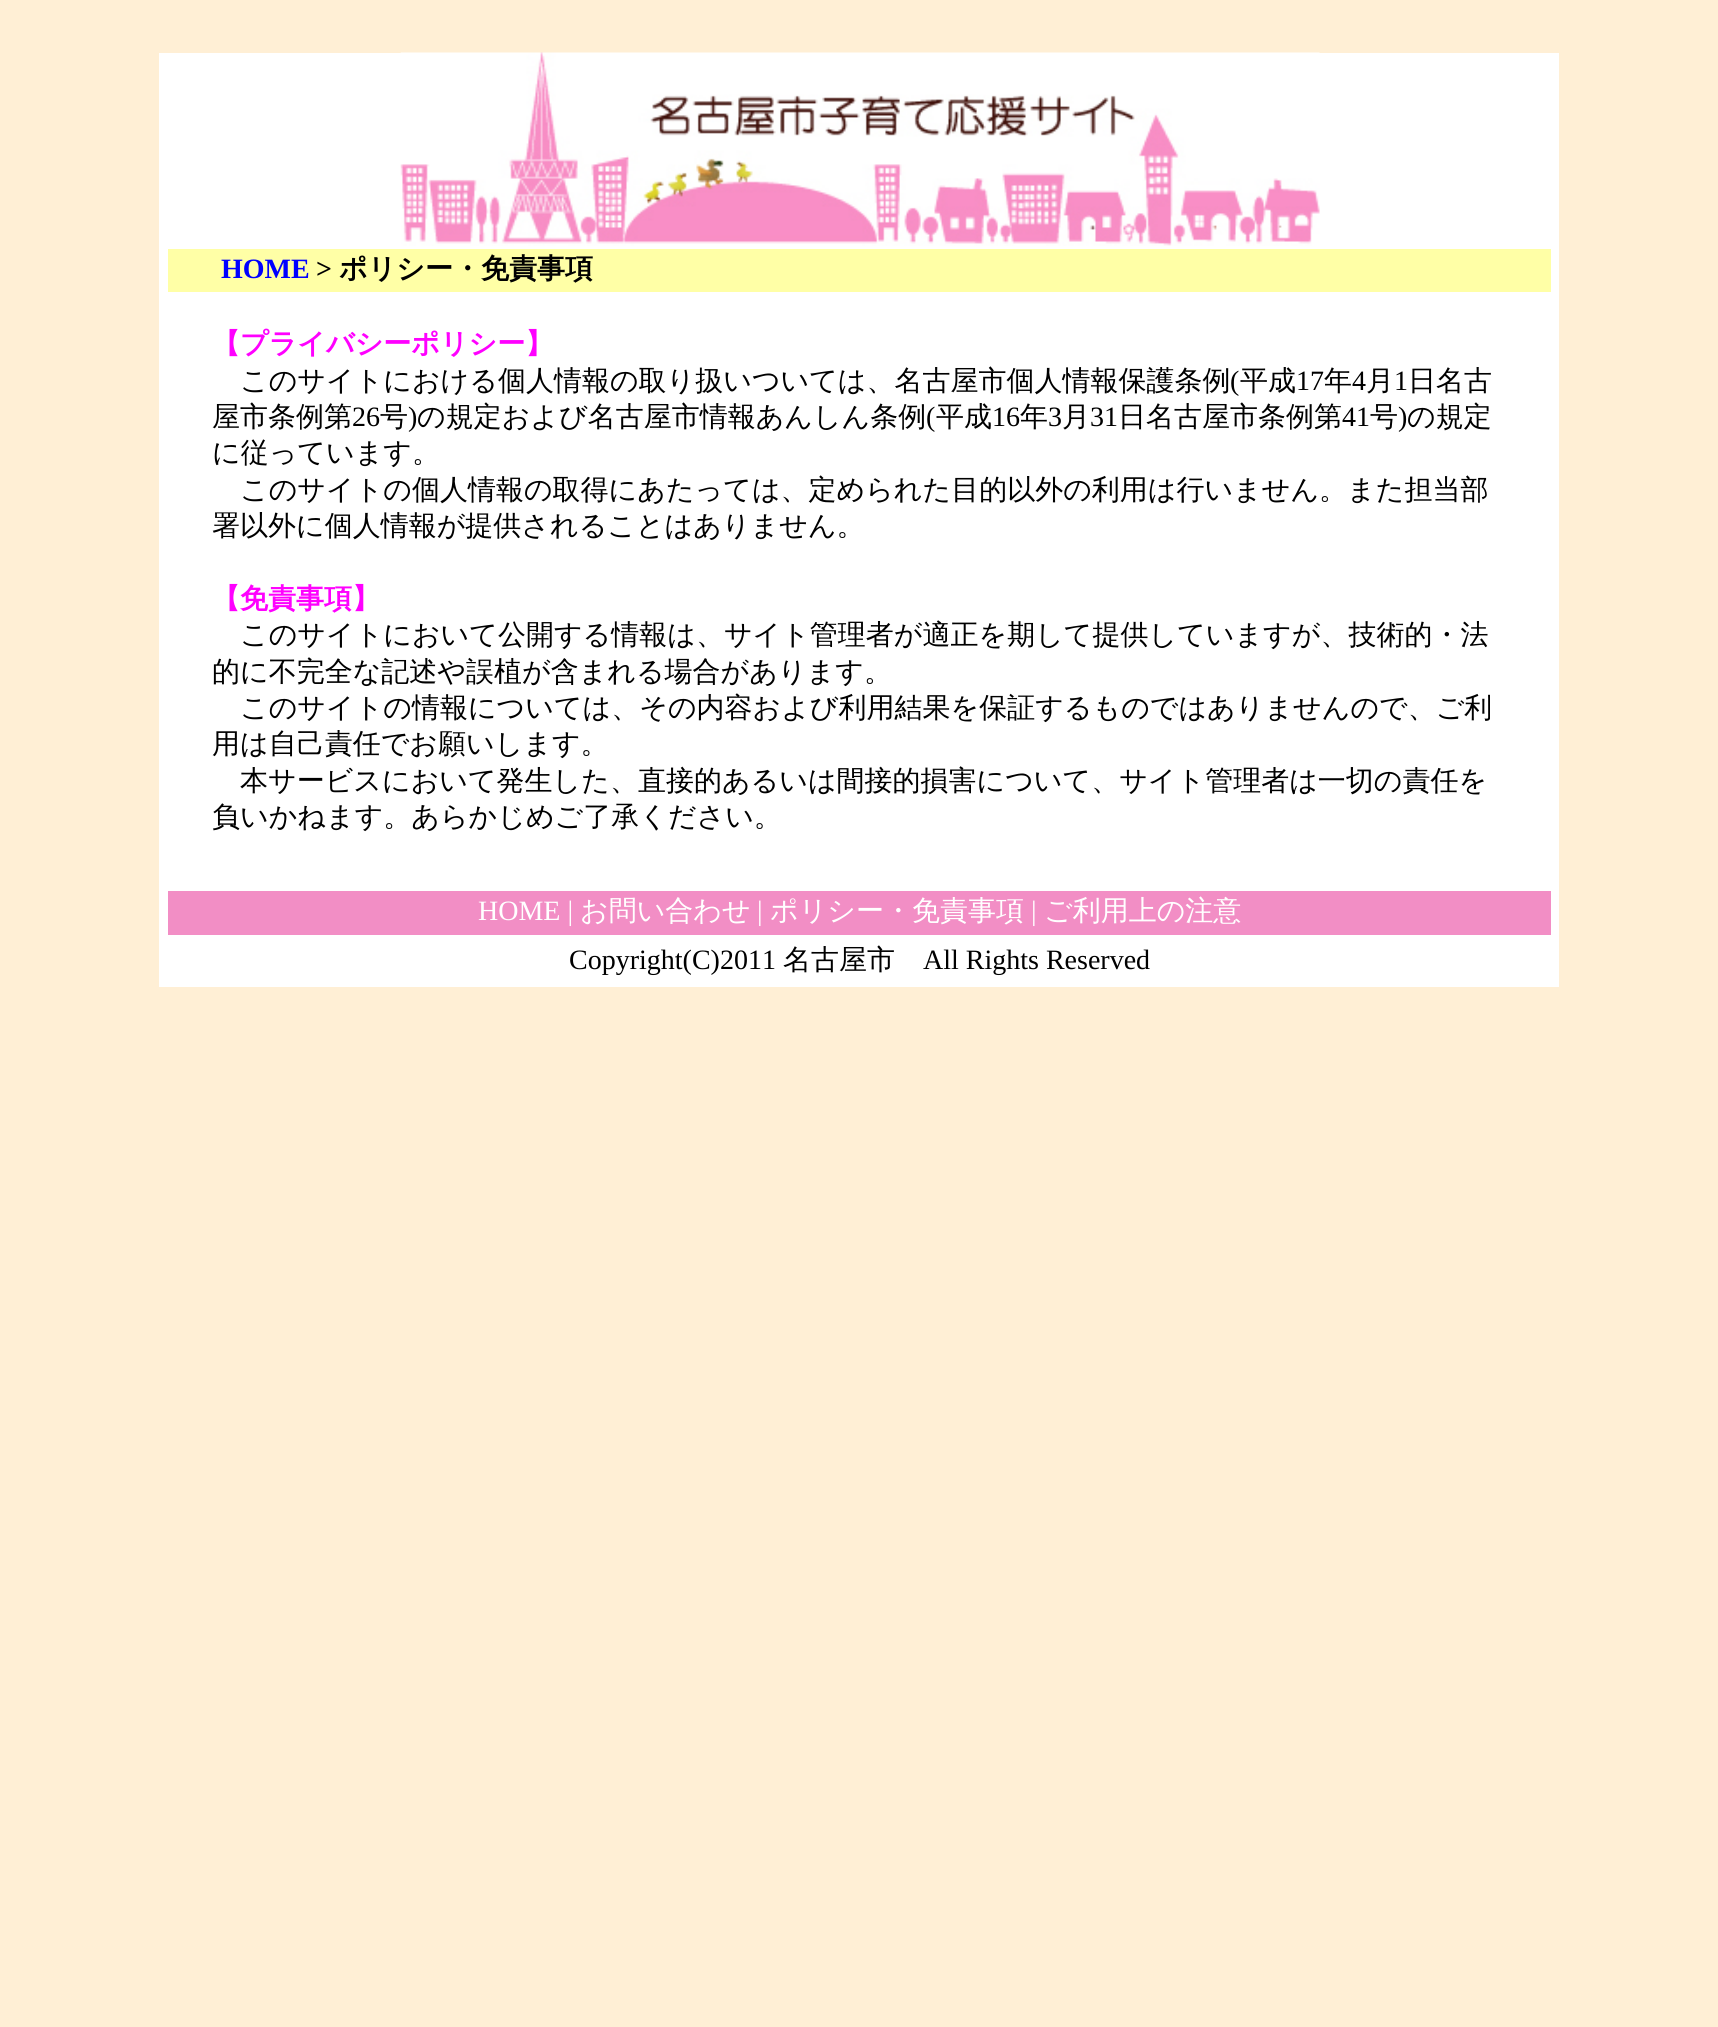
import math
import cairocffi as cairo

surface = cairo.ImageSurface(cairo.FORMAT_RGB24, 1718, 2027)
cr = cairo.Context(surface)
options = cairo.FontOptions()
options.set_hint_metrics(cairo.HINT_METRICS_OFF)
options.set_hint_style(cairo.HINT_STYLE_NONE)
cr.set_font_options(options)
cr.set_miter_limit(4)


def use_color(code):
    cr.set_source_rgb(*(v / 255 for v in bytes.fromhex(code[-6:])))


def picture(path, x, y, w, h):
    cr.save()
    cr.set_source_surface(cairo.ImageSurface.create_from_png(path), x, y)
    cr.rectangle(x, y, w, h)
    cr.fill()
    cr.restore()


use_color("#ffefd5")
cr.paint()
use_color("#ffffff")
cr.rectangle(159, 53, 1400, 934)
cr.fill()
picture("img1.png", 400, 52, 920, 194)
use_color("#ffffa6")
cr.rectangle(168, 249, 1383, 43)
cr.fill()
cr.select_font_face("Liberation Serif", cairo.FONT_SLANT_NORMAL, cairo.FONT_WEIGHT_BOLD)
cr.set_font_size(28)
use_color("#0000ff")
cr.move_to(221, 278)
cr.show_text("HOME")
use_color("#000000")
cr.move_to(316, 278)
cr.show_text(">")
cr.select_font_face("WenQuanYi Zen Hei", cairo.FONT_SLANT_NORMAL, cairo.FONT_WEIGHT_BOLD)
cr.move_to(339, 278)
cr.show_text("ポリシー・免責事項")
use_color("#ff00ff")
cr.move_to(212, 353)
cr.show_text("【プライバシーポリシー】")
cr.select_font_face("WenQuanYi Zen Hei Medium")
use_color("#000000")
cr.move_to(240, 390)
cr.show_text("このサイトにおける個人情報の取り扱いついては、名古屋市個人情報保護条例")
cr.select_font_face("Liberation Serif")
cr.move_to(1230, 390)
cr.show_text("(")
cr.select_font_face("WenQuanYi Zen Hei Medium")
cr.move_to(1240, 390)
cr.show_text("平成")
cr.select_font_face("Liberation Serif")
cr.move_to(1296, 390)
cr.show_text("17")
cr.select_font_face("WenQuanYi Zen Hei Medium")
cr.move_to(1324, 390)
cr.show_text("年")
cr.select_font_face("Liberation Serif")
cr.move_to(1352, 390)
cr.show_text("4")
cr.select_font_face("WenQuanYi Zen Hei Medium")
cr.move_to(1366, 390)
cr.show_text("月")
cr.select_font_face("Liberation Serif")
cr.move_to(1394, 390)
cr.show_text("1")
cr.select_font_face("WenQuanYi Zen Hei Medium")
cr.move_to(1408, 390)
cr.show_text("日名古")
cr.move_to(212, 426)
cr.show_text("屋市条例第")
cr.select_font_face("Liberation Serif")
cr.move_to(352, 426)
cr.show_text("26")
cr.select_font_face("WenQuanYi Zen Hei Medium")
cr.move_to(380, 426)
cr.show_text("号")
cr.select_font_face("Liberation Serif")
cr.move_to(408, 426)
cr.show_text(")")
cr.select_font_face("WenQuanYi Zen Hei Medium")
cr.move_to(417, 426)
cr.show_text("の規定および名古屋市情報あんしん条例")
cr.select_font_face("Liberation Serif")
cr.move_to(926, 426)
cr.show_text("(")
cr.select_font_face("WenQuanYi Zen Hei Medium")
cr.move_to(936, 426)
cr.show_text("平成")
cr.select_font_face("Liberation Serif")
cr.move_to(992, 426)
cr.show_text("16")
cr.select_font_face("WenQuanYi Zen Hei Medium")
cr.move_to(1020, 426)
cr.show_text("年")
cr.select_font_face("Liberation Serif")
cr.move_to(1048, 426)
cr.show_text("3")
cr.select_font_face("WenQuanYi Zen Hei Medium")
cr.move_to(1062, 426)
cr.show_text("月")
cr.select_font_face("Liberation Serif")
cr.move_to(1090, 426)
cr.show_text("31")
cr.select_font_face("WenQuanYi Zen Hei Medium")
cr.move_to(1118, 426)
cr.show_text("日名古屋市条例第")
cr.select_font_face("Liberation Serif")
cr.move_to(1342, 426)
cr.show_text("41")
cr.select_font_face("WenQuanYi Zen Hei Medium")
cr.move_to(1370, 426)
cr.show_text("号")
cr.select_font_face("Liberation Serif")
cr.move_to(1398, 426)
cr.show_text(")")
cr.select_font_face("WenQuanYi Zen Hei Medium")
cr.move_to(1407, 426)
cr.show_text("の規定")
cr.move_to(212, 462)
cr.show_text("に従っています。")
cr.move_to(240, 499)
cr.show_text("このサイトの個人情報の取得にあたっては、定められた目的以外の利用は行いません。また担当部")
cr.move_to(212, 535)
cr.show_text("署以外に個人情報が提供されることはありません。")
cr.select_font_face("WenQuanYi Zen Hei", cairo.FONT_SLANT_NORMAL, cairo.FONT_WEIGHT_BOLD)
use_color("#ff00ff")
cr.move_to(212, 608)
cr.show_text("【免責事項】")
cr.select_font_face("WenQuanYi Zen Hei Medium")
use_color("#000000")
cr.move_to(240, 644)
cr.show_text("このサイトにおいて公開する情報は、サイト管理者が適正を期して提供していますが、技術的・法")
cr.move_to(212, 681)
cr.show_text("的に不完全な記述や誤植が含まれる場合があります。")
cr.move_to(240, 717)
cr.show_text("このサイトの情報については、その内容および利用結果を保証するものではありませんので、ご利")
cr.move_to(212, 753)
cr.show_text("用は自己責任でお願いします。")
cr.move_to(240, 790)
cr.show_text("本サービスにおいて発生した、直接的あるいは間接的損害について、サイト管理者は一切の責任を")
cr.move_to(212, 826)
cr.show_text("負いかねます。あらかじめご了承ください。")
use_color("#f28ec5")
cr.rectangle(168, 891, 1383, 44)
cr.fill()
cr.select_font_face("Liberation Serif")
use_color("#ffffff")
cr.move_to(478, 920)
cr.show_text("HOME |")
cr.select_font_face("WenQuanYi Zen Hei Medium")
cr.move_to(580, 920)
cr.show_text("お問い合わせ")
cr.select_font_face("Liberation Serif")
cr.move_to(757, 920)
cr.show_text("|")
cr.select_font_face("WenQuanYi Zen Hei Medium")
cr.move_to(770, 920)
cr.show_text("ポリシー・免責事項")
cr.select_font_face("Liberation Serif")
cr.move_to(1031, 920)
cr.show_text("|")
cr.select_font_face("WenQuanYi Zen Hei Medium")
cr.move_to(1044, 920)
cr.show_text("ご利用上の注意")
cr.select_font_face("Liberation Serif")
use_color("#000000")
cr.move_to(569, 969)
cr.show_text("Copyright(C)2011")
cr.select_font_face("WenQuanYi Zen Hei Medium")
cr.move_to(783, 969)
cr.show_text("名古屋市")
cr.select_font_face("Liberation Serif")
cr.move_to(923, 969)
cr.show_text("All Rights Reserved")
surface.write_to_png("result.png")
